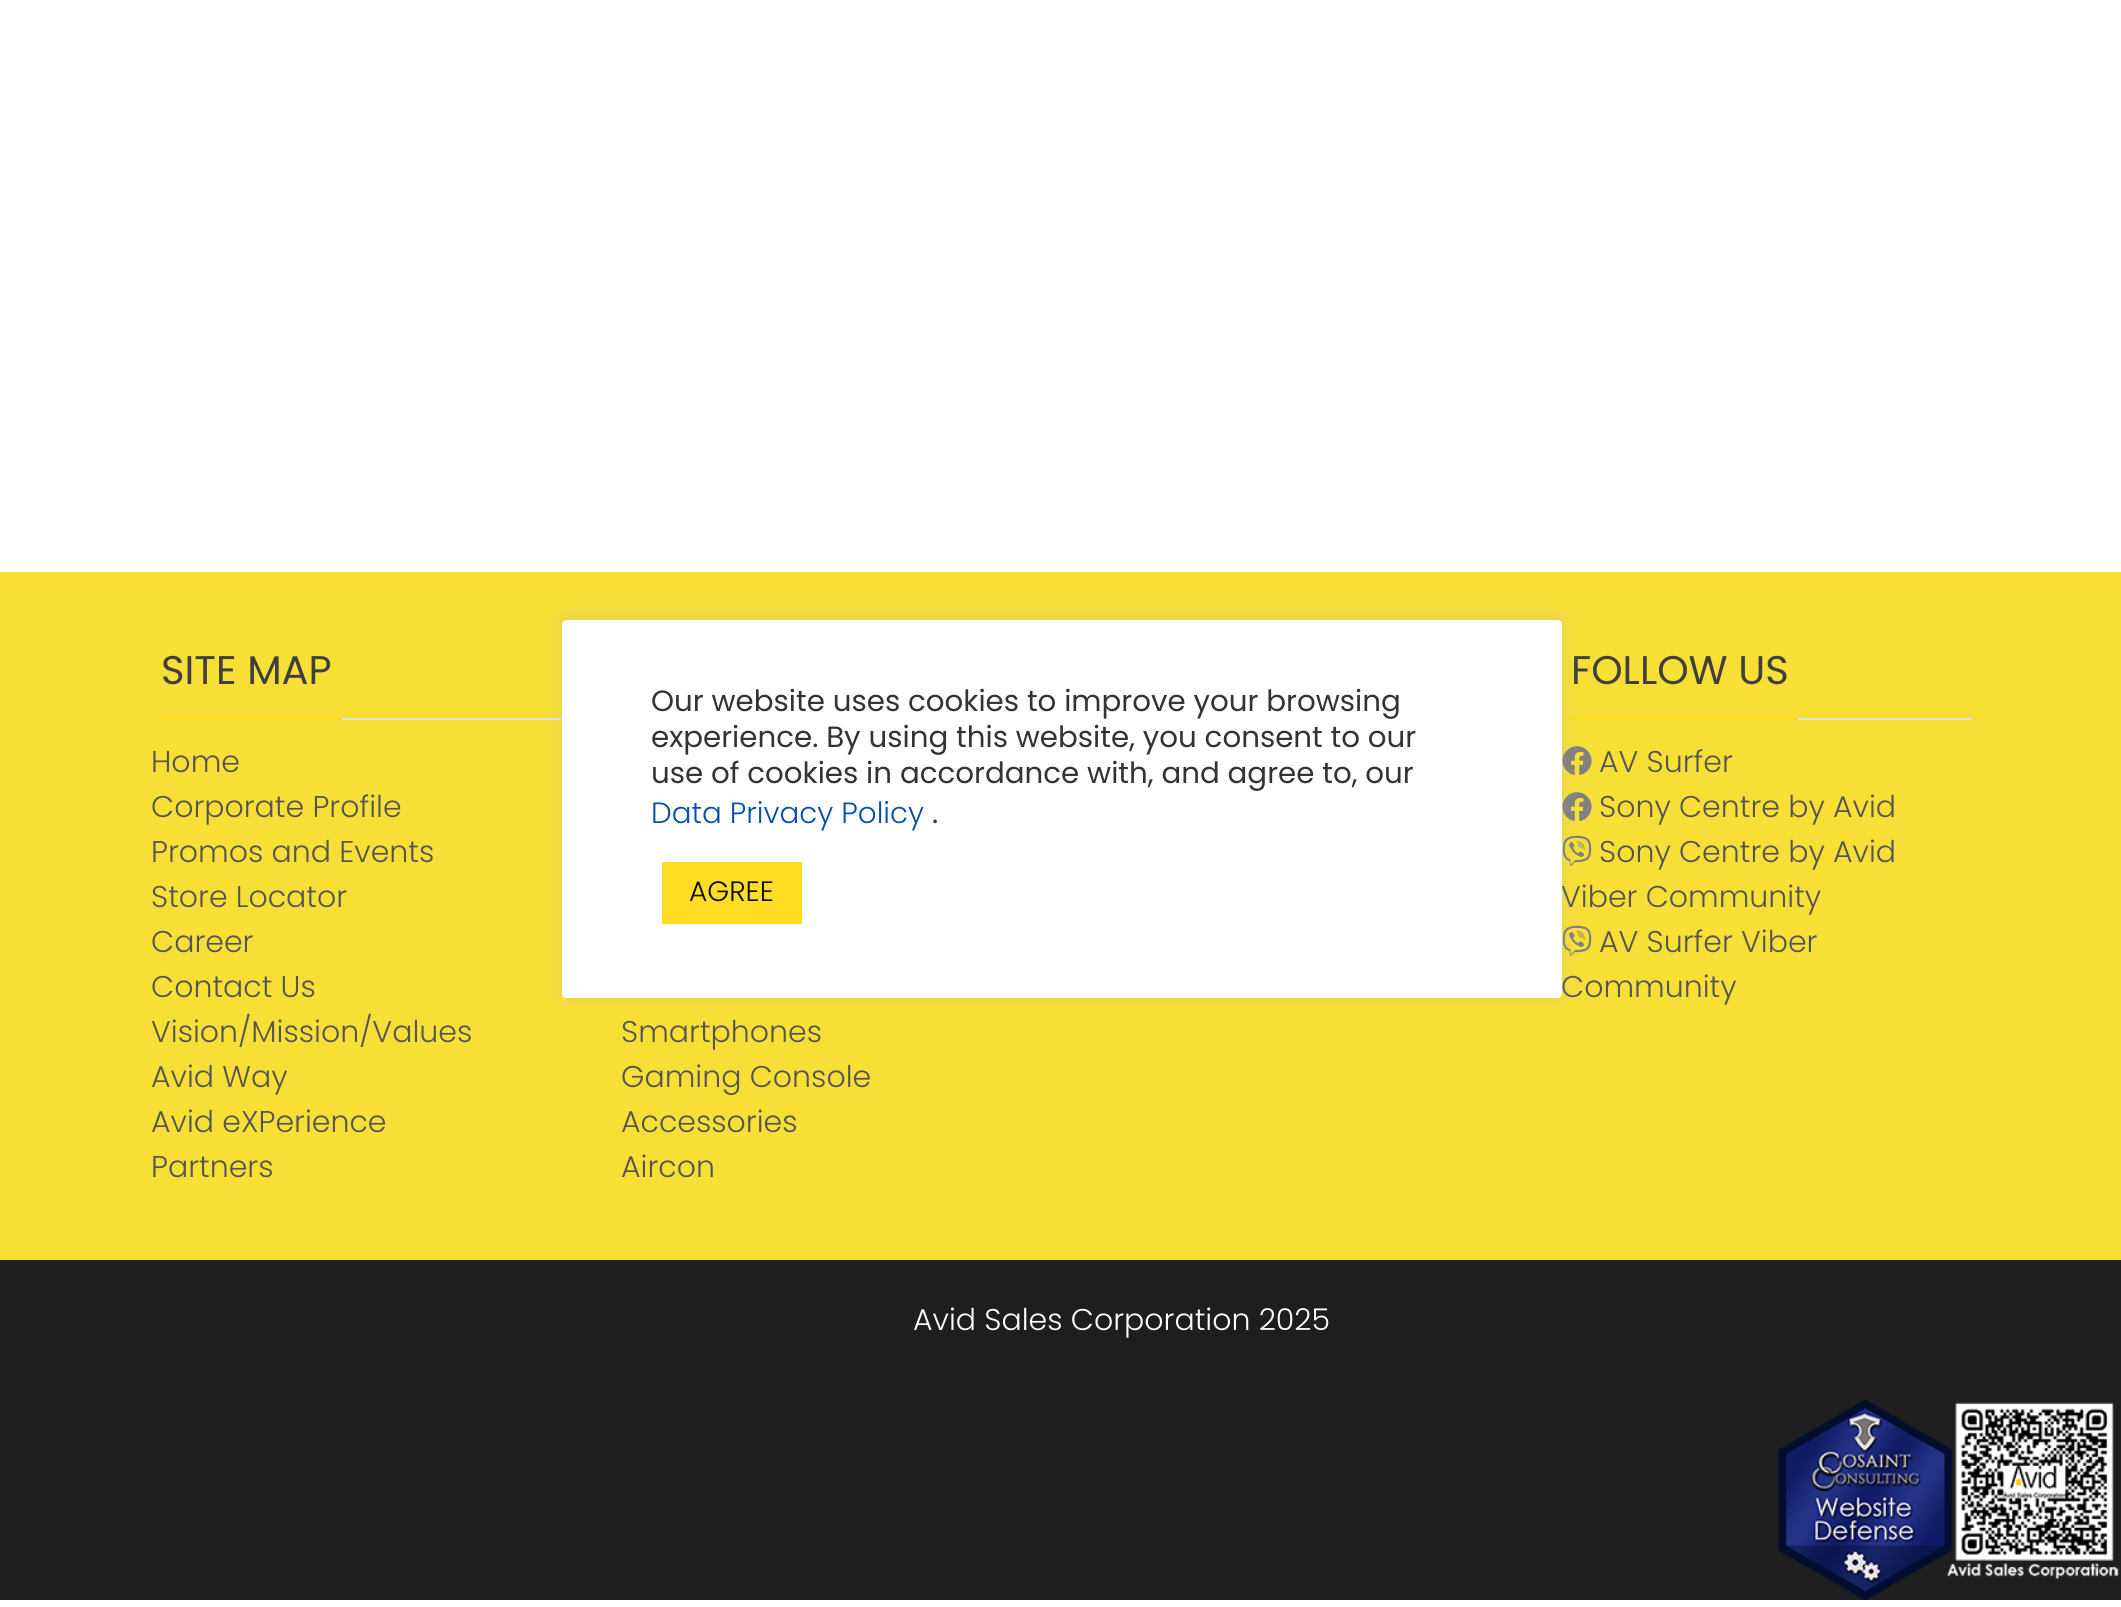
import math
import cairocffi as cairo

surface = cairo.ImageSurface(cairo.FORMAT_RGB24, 2121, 1607)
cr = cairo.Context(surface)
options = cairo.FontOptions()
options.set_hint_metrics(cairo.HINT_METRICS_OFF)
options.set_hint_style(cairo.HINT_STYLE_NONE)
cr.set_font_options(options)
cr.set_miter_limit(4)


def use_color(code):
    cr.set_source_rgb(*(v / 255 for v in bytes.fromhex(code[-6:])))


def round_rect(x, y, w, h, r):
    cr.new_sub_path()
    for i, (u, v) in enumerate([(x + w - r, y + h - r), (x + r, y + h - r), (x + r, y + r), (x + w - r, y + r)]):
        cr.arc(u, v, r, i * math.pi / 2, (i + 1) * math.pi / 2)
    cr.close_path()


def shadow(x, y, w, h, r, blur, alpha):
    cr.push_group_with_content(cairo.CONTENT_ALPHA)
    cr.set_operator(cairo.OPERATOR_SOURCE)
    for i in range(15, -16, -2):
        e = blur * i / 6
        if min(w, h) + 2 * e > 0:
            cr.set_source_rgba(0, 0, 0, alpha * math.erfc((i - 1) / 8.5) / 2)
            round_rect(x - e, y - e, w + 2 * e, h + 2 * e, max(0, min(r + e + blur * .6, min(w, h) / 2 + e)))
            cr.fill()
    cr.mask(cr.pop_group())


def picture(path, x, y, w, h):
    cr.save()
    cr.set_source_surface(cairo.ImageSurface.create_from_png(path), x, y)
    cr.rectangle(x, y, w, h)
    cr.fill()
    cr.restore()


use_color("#ffffff")
cr.paint()
use_color("#f8df35")
cr.rectangle(0, 572, 2121, 688)
cr.fill()
use_color("#e2e2e2")
cr.rectangle(342, 718, 220, 2)
cr.fill()
cr.select_font_face("Poppins")
cr.set_font_size(40)
use_color("#3f3f3f")
cr.move_to(161, 684)
cr.show_text("SITE MAP")
use_color("#ffdd22")
cr.rectangle(152, 718, 190, 2)
cr.fill()
cr.select_font_face("Poppins Light")
cr.set_font_size(30)
use_color("#545454")
cr.move_to(151, 772)
cr.show_text("Home")
cr.move_to(151, 817)
cr.show_text("Corporate Profile")
cr.move_to(151, 862)
cr.show_text("Promos and Events")
cr.move_to(151, 907)
cr.show_text("Store Locator")
cr.move_to(151, 952)
cr.show_text("Career")
cr.move_to(151, 997)
cr.show_text("Contact Us")
cr.move_to(151, 1042)
cr.show_text("Vision/Mission/Values")
cr.move_to(151, 1087)
cr.show_text("Avid Way")
cr.move_to(151, 1132)
cr.show_text("Avid eXPerience")
cr.move_to(151, 1177)
cr.show_text("Partners")
use_color("#e2e2e2")
cr.rectangle(1798, 718, 174, 2)
cr.fill()
cr.select_font_face("Poppins")
cr.set_font_size(40)
use_color("#3f3f3f")
cr.move_to(1571, 684)
cr.show_text("FOLLOW US")
use_color("#ffdd22")
cr.rectangle(1562, 718, 236, 2)
cr.fill()
picture("img1.png", 1562, 746, 30, 29)
cr.select_font_face("Poppins Light")
cr.set_font_size(30)
use_color("#545454")
cr.move_to(1599, 772)
cr.show_text("AV Surfer")
picture("img1.png", 1562, 792, 30, 29)
cr.move_to(1599, 817)
cr.show_text("Sony Centre by Avid")
picture("img2.png", 1562, 835, 30, 31)
cr.move_to(1599, 862)
cr.show_text("Sony Centre by Avid")
cr.move_to(1561, 907)
cr.show_text("Viber Community")
picture("img2.png", 1562, 925, 30, 31)
cr.move_to(1599, 952)
cr.show_text("AV Surfer Viber")
cr.move_to(1561, 997)
cr.show_text("Community")
cr.move_to(621, 1042)
cr.show_text("Smartphones")
cr.move_to(621, 1087)
cr.show_text("Gaming Console")
cr.move_to(621, 1132)
cr.show_text("Accessories")
cr.move_to(621, 1177)
cr.show_text("Aircon")
use_color("#1e1e1e")
cr.rectangle(0, 1260, 2121, 340)
cr.fill()
use_color("#ffffff")
cr.move_to(913, 1330)
cr.show_text("Avid Sales Corporation 2025")
use_color("#acabab")
shadow(562, 618, 1000, 378, 4, 10, 0.3)
use_color("#ffffff")
round_rect(562, 620, 1000, 378, 4)
cr.fill()
cr.select_font_face("Poppins")
cr.set_font_size(29.3)
use_color("#333333")
cr.move_to(651, 711)
cr.show_text("Our website uses cookies to improve your browsing")
cr.move_to(651, 747)
cr.show_text("experience. By using this website, you consent to our")
cr.move_to(651, 783)
cr.show_text("use of cookies in accordance with, and agree to, our")
cr.select_font_face("Poppins Light")
use_color("#004faa")
cr.move_to(651, 823)
cr.show_text("Data Privacy Policy")
cr.select_font_face("Poppins")
use_color("#333333")
cr.move_to(932, 823)
cr.show_text(".")
use_color("#ffdd22")
cr.rectangle(662, 862, 140, 62)
cr.fill()
cr.select_font_face("Poppins Light")
cr.set_font_size(28)
use_color("#0a0a0a")
cr.move_to(689, 901)
cr.show_text("AGREE")
picture("img3.png", 1778, 1400, 341, 200)
surface.write_to_png("result.png")
